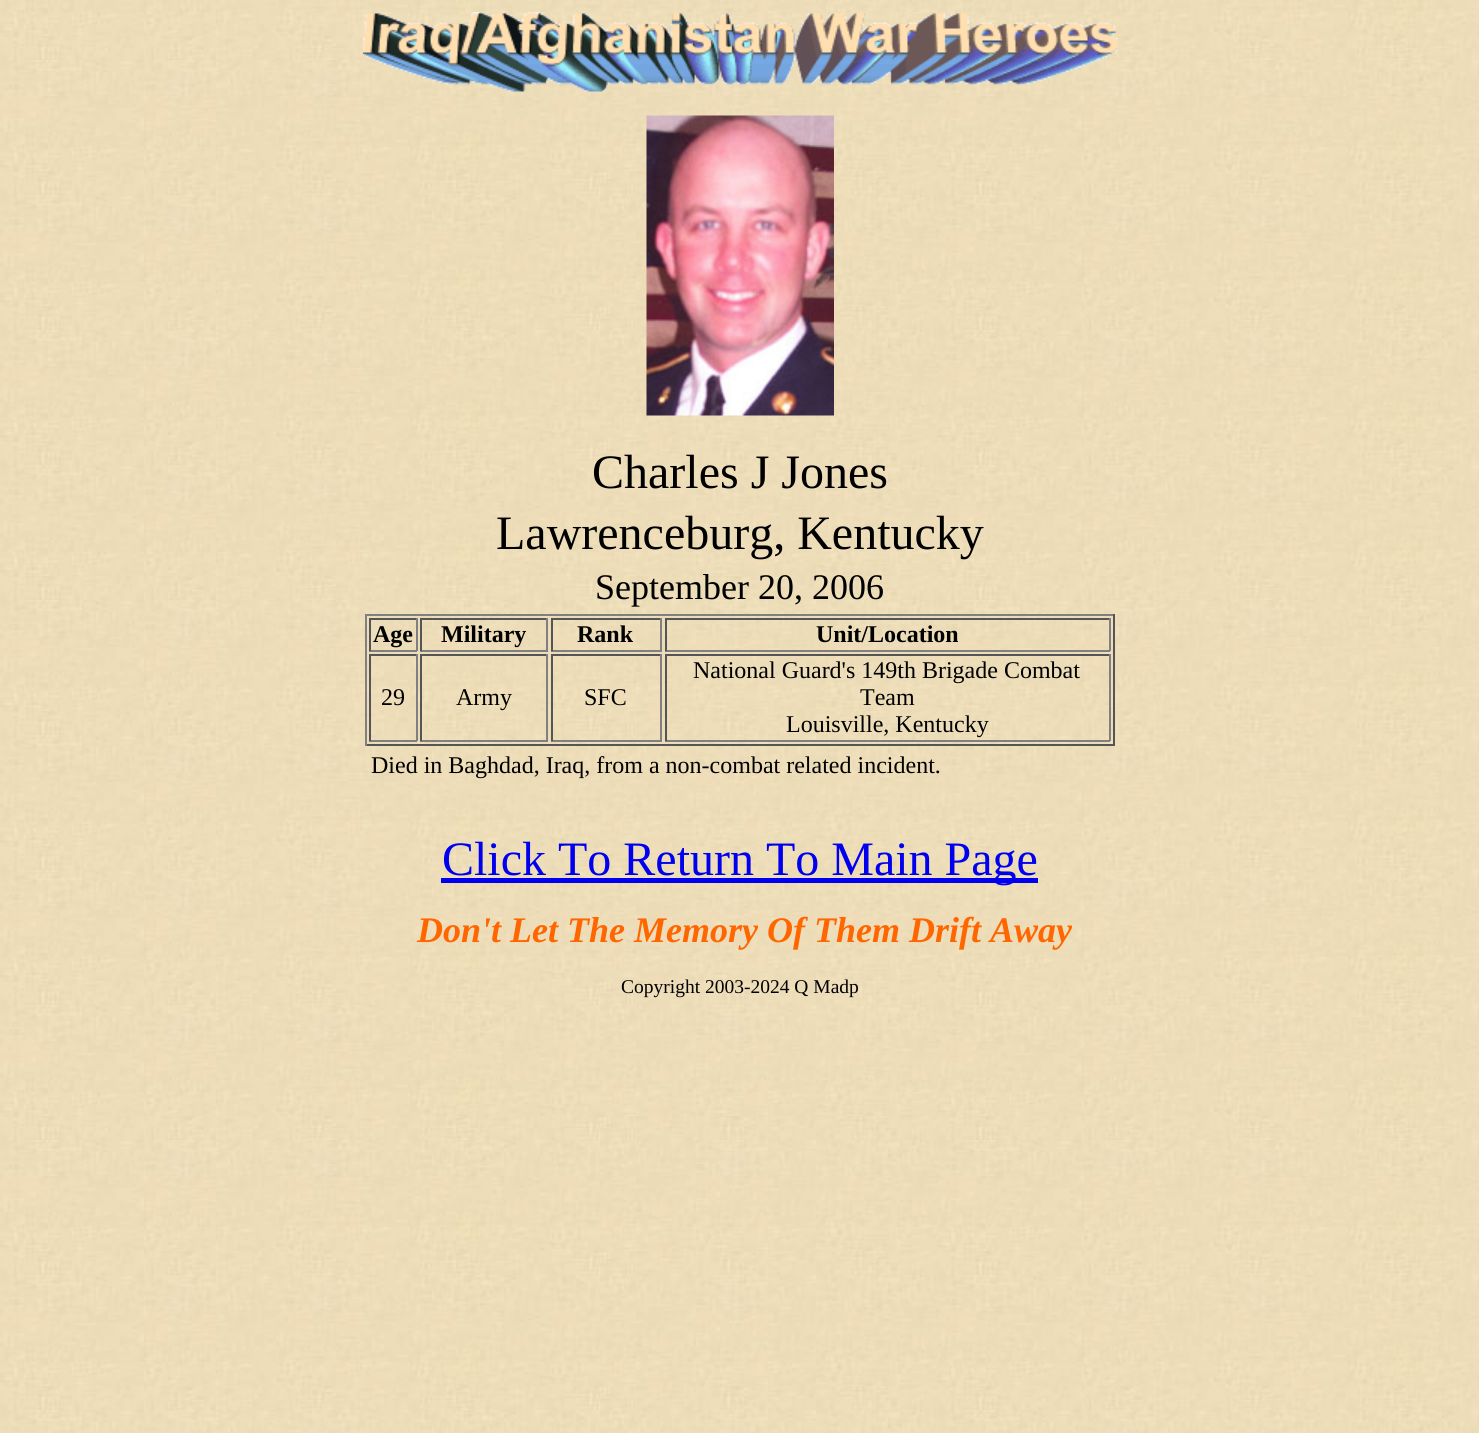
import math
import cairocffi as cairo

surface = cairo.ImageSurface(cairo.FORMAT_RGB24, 1479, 1433)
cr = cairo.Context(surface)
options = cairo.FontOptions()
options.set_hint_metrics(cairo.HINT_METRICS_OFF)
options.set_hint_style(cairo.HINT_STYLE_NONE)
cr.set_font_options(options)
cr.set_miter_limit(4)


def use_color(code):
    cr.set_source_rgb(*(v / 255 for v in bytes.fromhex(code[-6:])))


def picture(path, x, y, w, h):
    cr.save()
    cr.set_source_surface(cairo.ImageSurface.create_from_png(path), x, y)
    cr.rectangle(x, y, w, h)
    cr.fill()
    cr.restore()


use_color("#ffffff")
cr.paint()
picture("img1.png", 0, 0, 1479, 1433)
picture("img2.png", 363, 12, 755, 80)
picture("img3.png", 646, 115, 188, 301)
cr.select_font_face("Liberation Serif")
cr.set_font_size(48)
use_color("#000000")
cr.move_to(592, 488)
cr.show_text("Charles J Jones")
cr.move_to(496, 549)
cr.show_text("Lawrenceburg, Kentucky")
cr.set_font_size(36)
cr.move_to(595, 599)
cr.show_text("September 20, 2006")
use_color("#808080")
cr.rectangle(365, 614, 750, 2)
cr.fill()
use_color("#555555")
cr.rectangle(1113, 614, 2, 132)
cr.fill()
cr.rectangle(365, 744, 750, 2)
cr.fill()
use_color("#808080")
cr.rectangle(365, 614, 2, 132)
cr.fill()
use_color("#555555")
cr.rectangle(369, 618, 48, 2)
cr.fill()
use_color("#808080")
cr.rectangle(416, 618, 2, 33)
cr.fill()
cr.rectangle(369, 650, 48, 2)
cr.fill()
use_color("#555555")
cr.rectangle(369, 618, 2, 33)
cr.fill()
cr.select_font_face("Liberation Serif", cairo.FONT_SLANT_NORMAL, cairo.FONT_WEIGHT_BOLD)
cr.set_font_size(24)
use_color("#000000")
cr.move_to(373, 642)
cr.show_text("Age")
use_color("#555555")
cr.rectangle(420, 618, 128, 2)
cr.fill()
use_color("#808080")
cr.rectangle(546, 618, 2, 33)
cr.fill()
cr.rectangle(420, 650, 128, 2)
cr.fill()
use_color("#555555")
cr.rectangle(420, 618, 2, 33)
cr.fill()
use_color("#000000")
cr.move_to(441, 642)
cr.show_text("Military")
use_color("#555555")
cr.rectangle(551, 618, 111, 2)
cr.fill()
use_color("#808080")
cr.rectangle(660, 618, 2, 33)
cr.fill()
cr.rectangle(551, 650, 111, 2)
cr.fill()
use_color("#555555")
cr.rectangle(551, 618, 2, 33)
cr.fill()
use_color("#000000")
cr.move_to(577, 642)
cr.show_text("Rank")
use_color("#555555")
cr.rectangle(665, 618, 445, 2)
cr.fill()
use_color("#808080")
cr.rectangle(1109, 618, 2, 33)
cr.fill()
cr.rectangle(665, 650, 445, 2)
cr.fill()
use_color("#555555")
cr.rectangle(665, 618, 2, 33)
cr.fill()
use_color("#000000")
cr.move_to(816, 642)
cr.show_text("Unit/Location")
use_color("#555555")
cr.rectangle(369, 654, 48, 2)
cr.fill()
use_color("#808080")
cr.rectangle(416, 654, 2, 87)
cr.fill()
cr.rectangle(369, 740, 48, 2)
cr.fill()
use_color("#555555")
cr.rectangle(369, 654, 2, 87)
cr.fill()
cr.select_font_face("Liberation Serif")
use_color("#000000")
cr.move_to(381, 705)
cr.show_text("29")
use_color("#555555")
cr.rectangle(420, 654, 128, 2)
cr.fill()
use_color("#808080")
cr.rectangle(546, 654, 2, 87)
cr.fill()
cr.rectangle(420, 740, 128, 2)
cr.fill()
use_color("#555555")
cr.rectangle(420, 654, 2, 87)
cr.fill()
use_color("#000000")
cr.move_to(456, 705)
cr.show_text("Army")
use_color("#555555")
cr.rectangle(551, 654, 111, 2)
cr.fill()
use_color("#808080")
cr.rectangle(660, 654, 2, 87)
cr.fill()
cr.rectangle(551, 740, 111, 2)
cr.fill()
use_color("#555555")
cr.rectangle(551, 654, 2, 87)
cr.fill()
use_color("#000000")
cr.move_to(584, 705)
cr.show_text("SFC")
use_color("#555555")
cr.rectangle(665, 654, 445, 2)
cr.fill()
use_color("#808080")
cr.rectangle(1109, 654, 2, 87)
cr.fill()
cr.rectangle(665, 740, 445, 2)
cr.fill()
use_color("#555555")
cr.rectangle(665, 654, 2, 87)
cr.fill()
use_color("#000000")
cr.move_to(693, 678)
cr.show_text("National Guard's 149th Brigade Combat")
cr.move_to(860, 705)
cr.show_text("Team")
cr.move_to(786, 732)
cr.show_text("Louisville, Kentucky")
cr.move_to(371, 773)
cr.show_text("Died in Baghdad, Iraq, from a non-combat related incident.")
use_color("#0000ee")
cr.rectangle(441, 878, 597, 5)
cr.fill()
cr.set_font_size(48)
cr.move_to(442, 875)
cr.show_text("Click To Return To Main Page")
cr.select_font_face("Liberation Serif", cairo.FONT_SLANT_ITALIC, cairo.FONT_WEIGHT_BOLD)
cr.set_font_size(36)
use_color("#ff6600")
cr.move_to(417, 942)
cr.show_text("Don't Let The Memory Of Them Drift Away")
cr.select_font_face("Liberation Serif")
cr.set_font_size(19.5)
use_color("#000000")
cr.move_to(621, 993)
cr.show_text("Copyright 2003-2024 Q Madp")
surface.write_to_png("result.png")
